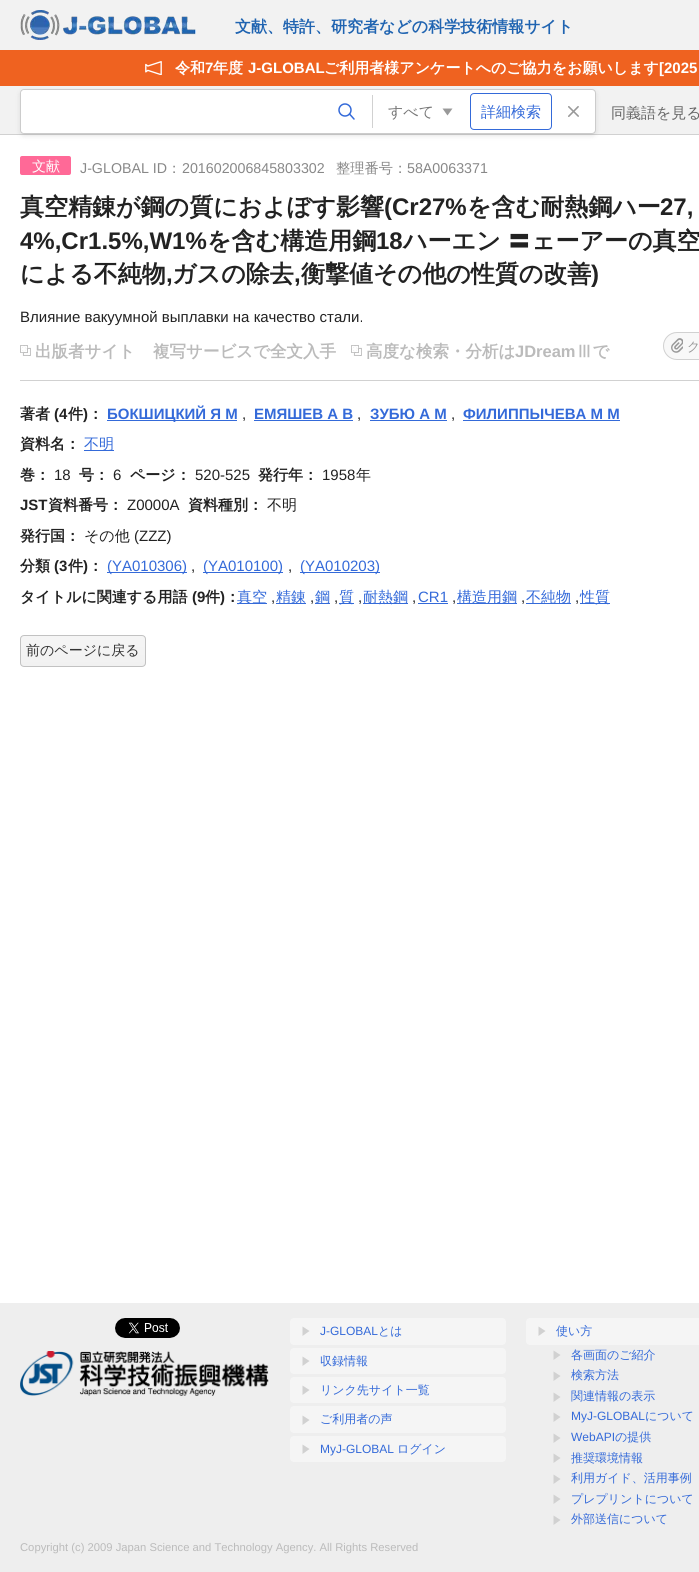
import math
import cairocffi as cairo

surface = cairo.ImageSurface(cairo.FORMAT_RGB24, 699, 1572)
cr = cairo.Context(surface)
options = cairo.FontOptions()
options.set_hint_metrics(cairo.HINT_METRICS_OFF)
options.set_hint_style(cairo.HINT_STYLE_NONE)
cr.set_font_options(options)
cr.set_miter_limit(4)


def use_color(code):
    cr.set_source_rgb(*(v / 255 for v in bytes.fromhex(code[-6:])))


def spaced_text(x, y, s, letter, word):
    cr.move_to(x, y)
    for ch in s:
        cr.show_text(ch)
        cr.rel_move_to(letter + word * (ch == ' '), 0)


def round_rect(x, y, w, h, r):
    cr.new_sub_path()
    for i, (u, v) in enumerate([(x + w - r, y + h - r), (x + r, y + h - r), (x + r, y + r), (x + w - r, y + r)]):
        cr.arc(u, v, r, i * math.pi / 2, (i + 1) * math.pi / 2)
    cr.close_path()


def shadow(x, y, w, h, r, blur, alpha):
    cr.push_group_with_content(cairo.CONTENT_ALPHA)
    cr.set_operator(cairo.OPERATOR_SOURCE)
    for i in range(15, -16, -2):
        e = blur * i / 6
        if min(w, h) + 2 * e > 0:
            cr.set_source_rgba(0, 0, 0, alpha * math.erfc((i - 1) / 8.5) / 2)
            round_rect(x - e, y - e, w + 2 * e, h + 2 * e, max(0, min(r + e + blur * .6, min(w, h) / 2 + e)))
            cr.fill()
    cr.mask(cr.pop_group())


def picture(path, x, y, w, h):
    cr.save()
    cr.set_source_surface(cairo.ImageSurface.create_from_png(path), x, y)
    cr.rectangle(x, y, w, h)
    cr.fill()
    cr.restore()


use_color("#ffffff")
cr.paint()
use_color("#f2f2f2")
cr.rectangle(0, 0, 699, 50)
cr.fill()
picture("img1.png", 20, 10, 176, 30)
cr.select_font_face("WenQuanYi Zen Hei", cairo.FONT_SLANT_NORMAL, cairo.FONT_WEIGHT_BOLD)
cr.set_font_size(16)
use_color("#2064b1")
cr.move_to(235, 32)
cr.show_text("文献、特許、研究者などの科学技術情報サイト")
use_color("#f2f2f2")
cr.rectangle(0, 86, 699, 48)
cr.fill()
use_color("#d1d1d1")
cr.rectangle(0, 134, 699, 1)
cr.fill()
use_color("#ef6220")
cr.rectangle(0, 50, 699, 36)
cr.fill()
picture("img2.png", 145, 61, 17, 14)
cr.set_font_size(15)
use_color("#ffffff")
cr.move_to(175, 73)
cr.show_text("令和")
cr.select_font_face("Liberation Sans", cairo.FONT_SLANT_NORMAL, cairo.FONT_WEIGHT_BOLD)
cr.move_to(205, 73)
cr.show_text("7")
cr.select_font_face("WenQuanYi Zen Hei", cairo.FONT_SLANT_NORMAL, cairo.FONT_WEIGHT_BOLD)
cr.move_to(213, 73)
cr.show_text("年度")
cr.select_font_face("Liberation Sans", cairo.FONT_SLANT_NORMAL, cairo.FONT_WEIGHT_BOLD)
cr.move_to(248, 73)
cr.show_text("J-GLOBAL")
cr.select_font_face("WenQuanYi Zen Hei", cairo.FONT_SLANT_NORMAL, cairo.FONT_WEIGHT_BOLD)
cr.move_to(324, 73)
cr.show_text("ご利用者様アンケートへのご協力をお願いします")
cr.select_font_face("Liberation Sans", cairo.FONT_SLANT_NORMAL, cairo.FONT_WEIGHT_BOLD)
cr.move_to(659, 73)
cr.show_text("[2025")
use_color("#000000")
shadow(20, 91, 576, 45, 4, 2.5, 0.1)
use_color("#ffffff")
round_rect(20.5, 89.5, 575, 44, 3.5)
cr.fill_preserve()
use_color("#cccccc")
cr.set_line_width(1)
cr.stroke()
cr.save()
round_rect(21, 90, 574, 43, 3)
cr.clip()
use_color("#ffffff")
round_rect(21, 90, 301, 43, 4)
cr.fill()
cr.restore()
cr.arc(345, 110, 6, 0, 2 * math.pi)
use_color("#346ad9")
cr.set_line_width(1.5)
cr.stroke()
cr.new_path()
cr.move_to(349.5, 114)
cr.line_to(354, 119)
cr.set_line_cap(cairo.LINE_CAP_ROUND)
cr.set_line_join(cairo.LINE_JOIN_ROUND)
cr.stroke()
use_color("#999999")
cr.new_path()
cr.move_to(452.5, 108.5)
cr.line_to(447.5, 115.5)
cr.line_to(442.5, 108.5)
cr.close_path()
cr.fill()
use_color("#d1d1d1")
cr.rectangle(372, 95, 1, 33)
cr.fill()
cr.select_font_face("WenQuanYi Zen Hei Medium")
use_color("#777777")
cr.move_to(388, 117)
cr.show_text("すべて")
round_rect(470.5, 93.5, 81, 36, 3.5)
use_color("#346ad9")
cr.set_line_width(1)
cr.set_line_cap(cairo.LINE_CAP_BUTT)
cr.set_line_join(cairo.LINE_JOIN_MITER)
cr.stroke()
cr.move_to(481, 117)
cr.show_text("詳細検索")
picture("img3.png", 568, 106, 11, 11)
use_color("#666666")
cr.move_to(611, 118)
cr.show_text("同義語を見る")
use_color("#d1d1d1")
cr.rectangle(20, 380, 679, 1)
cr.fill()
use_color("#ff6997")
round_rect(20, 156, 51, 19, 2)
cr.fill()
cr.set_font_size(14)
use_color("#ffffff")
cr.move_to(32, 171)
cr.show_text("文献")
cr.select_font_face("Liberation Sans")
cr.set_font_size(14.25)
use_color("#888888")
cr.move_to(80, 173)
cr.show_text("J-GLOBAL ID")
cr.select_font_face("WenQuanYi Zen Hei Medium")
cr.move_to(167, 173)
cr.show_text("：")
cr.select_font_face("Liberation Sans")
cr.move_to(182, 173)
cr.show_text("201602006845803302")
cr.select_font_face("WenQuanYi Zen Hei Medium")
cr.move_to(336, 173)
cr.show_text("整理番号：")
cr.select_font_face("Liberation Sans")
cr.move_to(407, 173)
cr.show_text("58A0063371")
cr.select_font_face("WenQuanYi Zen Hei", cairo.FONT_SLANT_NORMAL, cairo.FONT_WEIGHT_BOLD)
cr.set_font_size(24)
use_color("#222222")
cr.move_to(20, 215)
cr.show_text("真空精錬が鋼の質におよぼす影響")
cr.select_font_face("Liberation Sans", cairo.FONT_SLANT_NORMAL, cairo.FONT_WEIGHT_BOLD)
cr.move_to(384, 215)
cr.show_text("(Cr27%")
cr.select_font_face("WenQuanYi Zen Hei", cairo.FONT_SLANT_NORMAL, cairo.FONT_WEIGHT_BOLD)
cr.move_to(467, 215)
cr.show_text("を含む耐熱鋼ハー")
cr.select_font_face("Liberation Sans", cairo.FONT_SLANT_NORMAL, cairo.FONT_WEIGHT_BOLD)
cr.move_to(660, 215)
cr.show_text("27,")
cr.move_to(20, 249)
cr.show_text("4%,Cr1.5%,W1%")
cr.select_font_face("WenQuanYi Zen Hei", cairo.FONT_SLANT_NORMAL, cairo.FONT_WEIGHT_BOLD)
cr.move_to(207, 249)
cr.show_text("を含む構造用鋼")
cr.select_font_face("Liberation Sans", cairo.FONT_SLANT_NORMAL, cairo.FONT_WEIGHT_BOLD)
cr.move_to(376, 249)
cr.show_text("18")
cr.select_font_face("WenQuanYi Zen Hei", cairo.FONT_SLANT_NORMAL, cairo.FONT_WEIGHT_BOLD)
spaced_text(403, 249, "ハーエン 〓ェーアーの真空", 0, -1)
cr.move_to(20, 282)
cr.show_text("による不純物")
cr.select_font_face("Liberation Sans", cairo.FONT_SLANT_NORMAL, cairo.FONT_WEIGHT_BOLD)
cr.move_to(166, 282)
cr.show_text(",")
cr.select_font_face("WenQuanYi Zen Hei", cairo.FONT_SLANT_NORMAL, cairo.FONT_WEIGHT_BOLD)
cr.move_to(172, 282)
cr.show_text("ガスの除去")
cr.select_font_face("Liberation Sans", cairo.FONT_SLANT_NORMAL, cairo.FONT_WEIGHT_BOLD)
cr.move_to(294, 282)
cr.show_text(",")
cr.select_font_face("WenQuanYi Zen Hei", cairo.FONT_SLANT_NORMAL, cairo.FONT_WEIGHT_BOLD)
cr.move_to(301, 282)
cr.show_text("衡撃値その他の性質の改善")
cr.select_font_face("Liberation Sans", cairo.FONT_SLANT_NORMAL, cairo.FONT_WEIGHT_BOLD)
cr.move_to(591, 282)
cr.show_text(")")
cr.select_font_face("Liberation Sans")
cr.set_font_size(15)
cr.move_to(20, 322)
cr.show_text("Влияние вакуумной выплавки на качество стали.")
picture("img4.png", 20, 345, 11, 11)
cr.select_font_face("WenQuanYi Zen Hei", cairo.FONT_SLANT_NORMAL, cairo.FONT_WEIGHT_BOLD)
cr.set_font_size(16.5)
use_color("#bbbbbb")
cr.move_to(35, 357)
cr.show_text("出版者サイト")
cr.move_to(153, 357)
cr.show_text("複写サービスで全文入手")
picture("img4.png", 351, 345, 11, 11)
cr.move_to(366, 357)
cr.show_text("高度な検索・分析は")
cr.select_font_face("Liberation Sans", cairo.FONT_SLANT_NORMAL, cairo.FONT_WEIGHT_BOLD)
cr.move_to(515, 357)
cr.show_text("JDream")
cr.select_font_face("WenQuanYi Zen Hei", cairo.FONT_SLANT_NORMAL, cairo.FONT_WEIGHT_BOLD)
cr.move_to(576, 357)
cr.show_text("Ⅲで")
use_color("#f8f8f8")
round_rect(663, 332, 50, 28, 14)
cr.fill()
picture("img5.png", 671, 338, 12, 15)
round_rect(663.5, 332.5, 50, 27, 13.5)
use_color("#d1d1d1")
cr.stroke()
cr.select_font_face("WenQuanYi Zen Hei Medium")
cr.set_font_size(13)
use_color("#999999")
cr.move_to(687, 351)
cr.show_text("ク")
cr.select_font_face("WenQuanYi Zen Hei", cairo.FONT_SLANT_NORMAL, cairo.FONT_WEIGHT_BOLD)
cr.set_font_size(15)
use_color("#222222")
cr.move_to(20, 419)
cr.show_text("著者")
cr.select_font_face("Liberation Sans", cairo.FONT_SLANT_NORMAL, cairo.FONT_WEIGHT_BOLD)
cr.move_to(54, 419)
cr.show_text("(4")
cr.select_font_face("WenQuanYi Zen Hei", cairo.FONT_SLANT_NORMAL, cairo.FONT_WEIGHT_BOLD)
cr.move_to(68, 419)
cr.show_text("件")
cr.select_font_face("Liberation Sans", cairo.FONT_SLANT_NORMAL, cairo.FONT_WEIGHT_BOLD)
cr.move_to(83, 419)
cr.show_text(")")
cr.select_font_face("WenQuanYi Zen Hei", cairo.FONT_SLANT_NORMAL, cairo.FONT_WEIGHT_BOLD)
cr.move_to(88, 419)
cr.show_text("：")
use_color("#346ad9")
cr.rectangle(107, 420, 130, 1)
cr.fill()
cr.select_font_face("Liberation Sans", cairo.FONT_SLANT_NORMAL, cairo.FONT_WEIGHT_BOLD)
cr.move_to(107, 419)
cr.show_text("БОКШИЦКИЙ Я М")
cr.select_font_face("Liberation Sans")
use_color("#222222")
cr.move_to(242, 419)
cr.show_text(",")
cr.select_font_face("Liberation Sans", cairo.FONT_SLANT_NORMAL, cairo.FONT_WEIGHT_BOLD)
use_color("#346ad9")
cr.move_to(254, 419)
cr.show_text("ЕМЯШЕВ А В")
cr.rectangle(254, 420, 99, 1)
cr.fill()
cr.select_font_face("Liberation Sans")
use_color("#222222")
cr.move_to(357, 419)
cr.show_text(",")
cr.select_font_face("Liberation Sans", cairo.FONT_SLANT_NORMAL, cairo.FONT_WEIGHT_BOLD)
use_color("#346ad9")
cr.move_to(370, 419)
cr.show_text("ЗУБЮ А М")
cr.rectangle(370, 420, 77, 1)
cr.fill()
cr.select_font_face("Liberation Sans")
use_color("#222222")
cr.move_to(451, 419)
cr.show_text(",")
cr.select_font_face("Liberation Sans", cairo.FONT_SLANT_NORMAL, cairo.FONT_WEIGHT_BOLD)
use_color("#346ad9")
cr.move_to(463, 419)
cr.show_text("ФИЛИППЫЧЕВА М М")
cr.rectangle(463, 420, 157, 1)
cr.fill()
cr.select_font_face("WenQuanYi Zen Hei", cairo.FONT_SLANT_NORMAL, cairo.FONT_WEIGHT_BOLD)
use_color("#222222")
cr.move_to(20, 449)
cr.show_text("資料名：")
use_color("#346ad9")
cr.rectangle(84, 450, 30, 1)
cr.fill()
cr.select_font_face("WenQuanYi Zen Hei Medium")
cr.move_to(84, 449)
cr.show_text("不明")
cr.select_font_face("WenQuanYi Zen Hei", cairo.FONT_SLANT_NORMAL, cairo.FONT_WEIGHT_BOLD)
use_color("#222222")
cr.move_to(20, 480)
cr.show_text("巻：")
cr.select_font_face("Liberation Sans")
cr.move_to(54, 480)
cr.show_text("18")
cr.select_font_face("WenQuanYi Zen Hei", cairo.FONT_SLANT_NORMAL, cairo.FONT_WEIGHT_BOLD)
cr.move_to(79, 480)
cr.show_text("号：")
cr.select_font_face("Liberation Sans")
cr.move_to(113, 480)
cr.show_text("6")
cr.select_font_face("WenQuanYi Zen Hei", cairo.FONT_SLANT_NORMAL, cairo.FONT_WEIGHT_BOLD)
cr.move_to(130, 480)
cr.show_text("ページ：")
cr.select_font_face("Liberation Sans")
cr.move_to(195, 480)
cr.show_text("520-525")
cr.select_font_face("WenQuanYi Zen Hei", cairo.FONT_SLANT_NORMAL, cairo.FONT_WEIGHT_BOLD)
cr.move_to(258, 480)
cr.show_text("発行年：")
cr.select_font_face("Liberation Sans")
cr.move_to(322, 480)
cr.show_text("1958")
cr.select_font_face("WenQuanYi Zen Hei Medium")
cr.move_to(356, 480)
cr.show_text("年")
cr.select_font_face("Liberation Sans", cairo.FONT_SLANT_NORMAL, cairo.FONT_WEIGHT_BOLD)
cr.move_to(20, 510)
cr.show_text("JST")
cr.select_font_face("WenQuanYi Zen Hei", cairo.FONT_SLANT_NORMAL, cairo.FONT_WEIGHT_BOLD)
cr.move_to(48, 510)
cr.show_text("資料番号：")
cr.select_font_face("Liberation Sans")
cr.move_to(127, 510)
cr.show_text("Z0000A")
cr.select_font_face("WenQuanYi Zen Hei", cairo.FONT_SLANT_NORMAL, cairo.FONT_WEIGHT_BOLD)
cr.move_to(188, 510)
cr.show_text("資料種別：")
cr.select_font_face("WenQuanYi Zen Hei Medium")
cr.move_to(267, 510)
cr.show_text("不明")
cr.select_font_face("WenQuanYi Zen Hei", cairo.FONT_SLANT_NORMAL, cairo.FONT_WEIGHT_BOLD)
cr.move_to(20, 541)
cr.show_text("発行国：")
cr.select_font_face("WenQuanYi Zen Hei Medium")
cr.move_to(84, 541)
cr.show_text("その他")
cr.select_font_face("Liberation Sans")
cr.move_to(134, 541)
cr.show_text("(ZZZ)")
cr.select_font_face("WenQuanYi Zen Hei", cairo.FONT_SLANT_NORMAL, cairo.FONT_WEIGHT_BOLD)
cr.move_to(20, 571)
cr.show_text("分類")
cr.select_font_face("Liberation Sans", cairo.FONT_SLANT_NORMAL, cairo.FONT_WEIGHT_BOLD)
cr.move_to(54, 571)
cr.show_text("(3")
cr.select_font_face("WenQuanYi Zen Hei", cairo.FONT_SLANT_NORMAL, cairo.FONT_WEIGHT_BOLD)
cr.move_to(68, 571)
cr.show_text("件")
cr.select_font_face("Liberation Sans", cairo.FONT_SLANT_NORMAL, cairo.FONT_WEIGHT_BOLD)
cr.move_to(83, 571)
cr.show_text(")")
cr.select_font_face("WenQuanYi Zen Hei", cairo.FONT_SLANT_NORMAL, cairo.FONT_WEIGHT_BOLD)
cr.move_to(88, 571)
cr.show_text("：")
use_color("#346ad9")
cr.rectangle(107, 572, 80, 1)
cr.fill()
cr.select_font_face("Liberation Sans")
cr.move_to(107, 571)
cr.show_text("(YA010306)")
use_color("#222222")
cr.move_to(191, 571)
cr.show_text(",")
use_color("#346ad9")
cr.rectangle(203, 572, 80, 1)
cr.fill()
cr.move_to(203, 571)
cr.show_text("(YA010100)")
use_color("#222222")
cr.move_to(288, 571)
cr.show_text(",")
use_color("#346ad9")
cr.rectangle(300, 572, 80, 1)
cr.fill()
cr.move_to(300, 571)
cr.show_text("(YA010203)")
cr.select_font_face("WenQuanYi Zen Hei", cairo.FONT_SLANT_NORMAL, cairo.FONT_WEIGHT_BOLD)
use_color("#222222")
cr.move_to(20, 602)
cr.show_text("タイトルに関連する用語")
cr.select_font_face("Liberation Sans", cairo.FONT_SLANT_NORMAL, cairo.FONT_WEIGHT_BOLD)
cr.move_to(192, 602)
cr.show_text("(9")
cr.select_font_face("WenQuanYi Zen Hei", cairo.FONT_SLANT_NORMAL, cairo.FONT_WEIGHT_BOLD)
cr.move_to(205, 602)
cr.show_text("件")
cr.select_font_face("Liberation Sans", cairo.FONT_SLANT_NORMAL, cairo.FONT_WEIGHT_BOLD)
cr.move_to(220, 602)
cr.show_text(")")
cr.select_font_face("WenQuanYi Zen Hei", cairo.FONT_SLANT_NORMAL, cairo.FONT_WEIGHT_BOLD)
cr.move_to(225, 602)
cr.show_text("：")
use_color("#346ad9")
cr.rectangle(237, 603, 30, 1)
cr.fill()
cr.select_font_face("WenQuanYi Zen Hei Medium")
cr.move_to(237, 602)
cr.show_text("真空")
cr.select_font_face("Liberation Sans")
use_color("#222222")
cr.move_to(271, 602)
cr.show_text(",")
use_color("#346ad9")
cr.rectangle(276, 603, 30, 1)
cr.fill()
cr.select_font_face("WenQuanYi Zen Hei Medium")
cr.move_to(276, 602)
cr.show_text("精錬")
cr.select_font_face("Liberation Sans")
use_color("#222222")
cr.move_to(310, 602)
cr.show_text(",")
use_color("#346ad9")
cr.rectangle(315, 603, 15, 1)
cr.fill()
cr.select_font_face("WenQuanYi Zen Hei Medium")
cr.move_to(315, 602)
cr.show_text("鋼")
cr.select_font_face("Liberation Sans")
use_color("#222222")
cr.move_to(334, 602)
cr.show_text(",")
use_color("#346ad9")
cr.rectangle(339, 603, 15, 1)
cr.fill()
cr.select_font_face("WenQuanYi Zen Hei Medium")
cr.move_to(339, 602)
cr.show_text("質")
cr.select_font_face("Liberation Sans")
use_color("#222222")
cr.move_to(358, 602)
cr.show_text(",")
use_color("#346ad9")
cr.rectangle(363, 603, 45, 1)
cr.fill()
cr.select_font_face("WenQuanYi Zen Hei Medium")
cr.move_to(363, 602)
cr.show_text("耐熱鋼")
cr.select_font_face("Liberation Sans")
use_color("#222222")
cr.move_to(412, 602)
cr.show_text(",")
use_color("#346ad9")
cr.move_to(418, 602)
cr.show_text("CR1")
cr.rectangle(418, 603, 30, 1)
cr.fill()
use_color("#222222")
cr.move_to(452, 602)
cr.show_text(",")
use_color("#346ad9")
cr.rectangle(457, 603, 60, 1)
cr.fill()
cr.select_font_face("WenQuanYi Zen Hei Medium")
cr.move_to(457, 602)
cr.show_text("構造用鋼")
cr.select_font_face("Liberation Sans")
use_color("#222222")
cr.move_to(521, 602)
cr.show_text(",")
use_color("#346ad9")
cr.rectangle(526, 603, 45, 1)
cr.fill()
cr.select_font_face("WenQuanYi Zen Hei Medium")
cr.move_to(526, 602)
cr.show_text("不純物")
cr.select_font_face("Liberation Sans")
use_color("#222222")
cr.move_to(575, 602)
cr.show_text(",")
use_color("#346ad9")
cr.rectangle(580, 603, 30, 1)
cr.fill()
cr.select_font_face("WenQuanYi Zen Hei Medium")
cr.move_to(580, 602)
cr.show_text("性質")
cr.save()
round_rect(20, 635, 126, 32, 4)
cr.clip()
gradient = cairo.LinearGradient(83, 636, 83, 666)
gradient.add_color_stop_rgba(0, 0.961, 0.961, 0.961, 1)
gradient.add_color_stop_rgba(1, 0.945, 0.945, 0.945, 1)
cr.set_source(gradient)
cr.rectangle(20, 636, 126, 30)
cr.fill()
cr.restore()
round_rect(20.5, 635.5, 125, 31, 3.5)
use_color("#c2c2c2")
cr.stroke()
cr.set_font_size(14)
use_color("#333333")
cr.move_to(26, 655)
cr.show_text("前のページに戻る")
use_color("#eeeeee")
cr.rectangle(0, 1303, 699, 269)
cr.fill()
picture("img6.png", 115, 1318, 65, 20)
picture("img7.png", 20, 1351, 249, 45)
use_color("#f5f5f5")
round_rect(290, 1318, 216, 27, 4)
cr.fill()
use_color("#d1d1d1")
cr.new_path()
cr.move_to(302.5, 1326.5)
cr.line_to(309.5, 1331)
cr.line_to(302.5, 1336)
cr.close_path()
cr.fill()
cr.select_font_face("Liberation Sans")
cr.set_font_size(12)
use_color("#346ad9")
cr.move_to(320, 1335)
cr.show_text("J-GLOBAL")
cr.select_font_face("WenQuanYi Zen Hei Medium")
cr.move_to(378, 1335)
cr.show_text("とは")
use_color("#f5f5f5")
round_rect(290, 1348, 216, 26, 4)
cr.fill()
use_color("#d1d1d1")
cr.new_path()
cr.move_to(302.5, 1356.5)
cr.line_to(309.5, 1361)
cr.line_to(302.5, 1366)
cr.close_path()
cr.fill()
use_color("#346ad9")
cr.move_to(320, 1365)
cr.show_text("収録情報")
use_color("#f5f5f5")
round_rect(290, 1377, 216, 26, 4)
cr.fill()
use_color("#d1d1d1")
cr.new_path()
cr.move_to(302.5, 1385.5)
cr.line_to(309.5, 1390)
cr.line_to(302.5, 1395)
cr.close_path()
cr.fill()
use_color("#346ad9")
cr.move_to(320, 1394)
cr.show_text("リンク先サイト一覧")
use_color("#f5f5f5")
round_rect(290, 1406, 216, 27, 4)
cr.fill()
use_color("#d1d1d1")
cr.new_path()
cr.move_to(302.5, 1415.5)
cr.line_to(309.5, 1420)
cr.line_to(302.5, 1425)
cr.close_path()
cr.fill()
use_color("#346ad9")
cr.move_to(320, 1423)
cr.show_text("ご利用者の声")
use_color("#f5f5f5")
round_rect(290, 1436, 216, 26, 4)
cr.fill()
use_color("#d1d1d1")
cr.new_path()
cr.move_to(302.5, 1444.5)
cr.line_to(309.5, 1449)
cr.line_to(302.5, 1454)
cr.close_path()
cr.fill()
cr.select_font_face("Liberation Sans")
use_color("#346ad9")
cr.move_to(320, 1453)
cr.show_text("MyJ-GLOBAL")
cr.select_font_face("WenQuanYi Zen Hei Medium")
cr.move_to(397, 1453)
cr.show_text("ログイン")
use_color("#f5f5f5")
round_rect(526, 1318, 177, 27, 4)
cr.fill()
use_color("#d1d1d1")
cr.new_path()
cr.move_to(538.5, 1326.5)
cr.line_to(545.5, 1331)
cr.line_to(538.5, 1336)
cr.close_path()
cr.move_to(553.5, 1350.5)
cr.line_to(560.5, 1355)
cr.line_to(553.5, 1360)
cr.close_path()
cr.move_to(553.5, 1371.5)
cr.line_to(560.5, 1376)
cr.line_to(553.5, 1381)
cr.close_path()
cr.fill()
use_color("#346ad9")
cr.move_to(556, 1335)
cr.show_text("使い方")
cr.move_to(571, 1359)
cr.show_text("各画面のご紹介")
cr.move_to(571, 1379)
cr.show_text("検索方法")
use_color("#d1d1d1")
cr.new_path()
cr.move_to(553.5, 1392.5)
cr.line_to(560.5, 1397)
cr.line_to(553.5, 1402)
cr.close_path()
cr.move_to(553.5, 1412.5)
cr.line_to(560.5, 1417)
cr.line_to(553.5, 1422)
cr.close_path()
cr.move_to(553.5, 1433.5)
cr.line_to(560.5, 1438)
cr.line_to(553.5, 1443)
cr.close_path()
cr.fill()
use_color("#346ad9")
cr.move_to(571, 1400)
cr.show_text("関連情報の表示")
cr.select_font_face("Liberation Sans")
cr.move_to(571, 1420)
cr.show_text("MyJ-GLOBAL")
cr.select_font_face("WenQuanYi Zen Hei Medium")
cr.move_to(645, 1420)
cr.show_text("について")
cr.select_font_face("Liberation Sans")
cr.move_to(571, 1441)
cr.show_text("WebAPI")
cr.select_font_face("WenQuanYi Zen Hei Medium")
cr.move_to(615, 1441)
cr.show_text("の提供")
use_color("#d1d1d1")
cr.new_path()
cr.move_to(553.5, 1453.5)
cr.line_to(560.5, 1458)
cr.line_to(553.5, 1463)
cr.close_path()
cr.move_to(553.5, 1474.5)
cr.line_to(560.5, 1479)
cr.line_to(553.5, 1484)
cr.close_path()
cr.move_to(553.5, 1494.5)
cr.line_to(560.5, 1499)
cr.line_to(553.5, 1504)
cr.close_path()
cr.fill()
use_color("#346ad9")
cr.move_to(571, 1462)
cr.show_text("推奨環境情報")
cr.move_to(571, 1482)
cr.show_text("利用ガイド、活用事例")
cr.move_to(571, 1503)
cr.show_text("プレプリントについて")
use_color("#d1d1d1")
cr.new_path()
cr.move_to(553.5, 1515.5)
cr.line_to(560.5, 1520)
cr.line_to(553.5, 1525)
cr.close_path()
cr.fill()
use_color("#346ad9")
cr.move_to(571, 1523)
cr.show_text("外部送信について")
cr.select_font_face("Liberation Sans")
cr.set_font_size(11.25)
use_color("#bbbbbb")
cr.move_to(20, 1551)
cr.show_text("Copyright (c) 2009 Japan Science and Technology Agency. All Rights Reserved")
surface.write_to_png("result.png")
